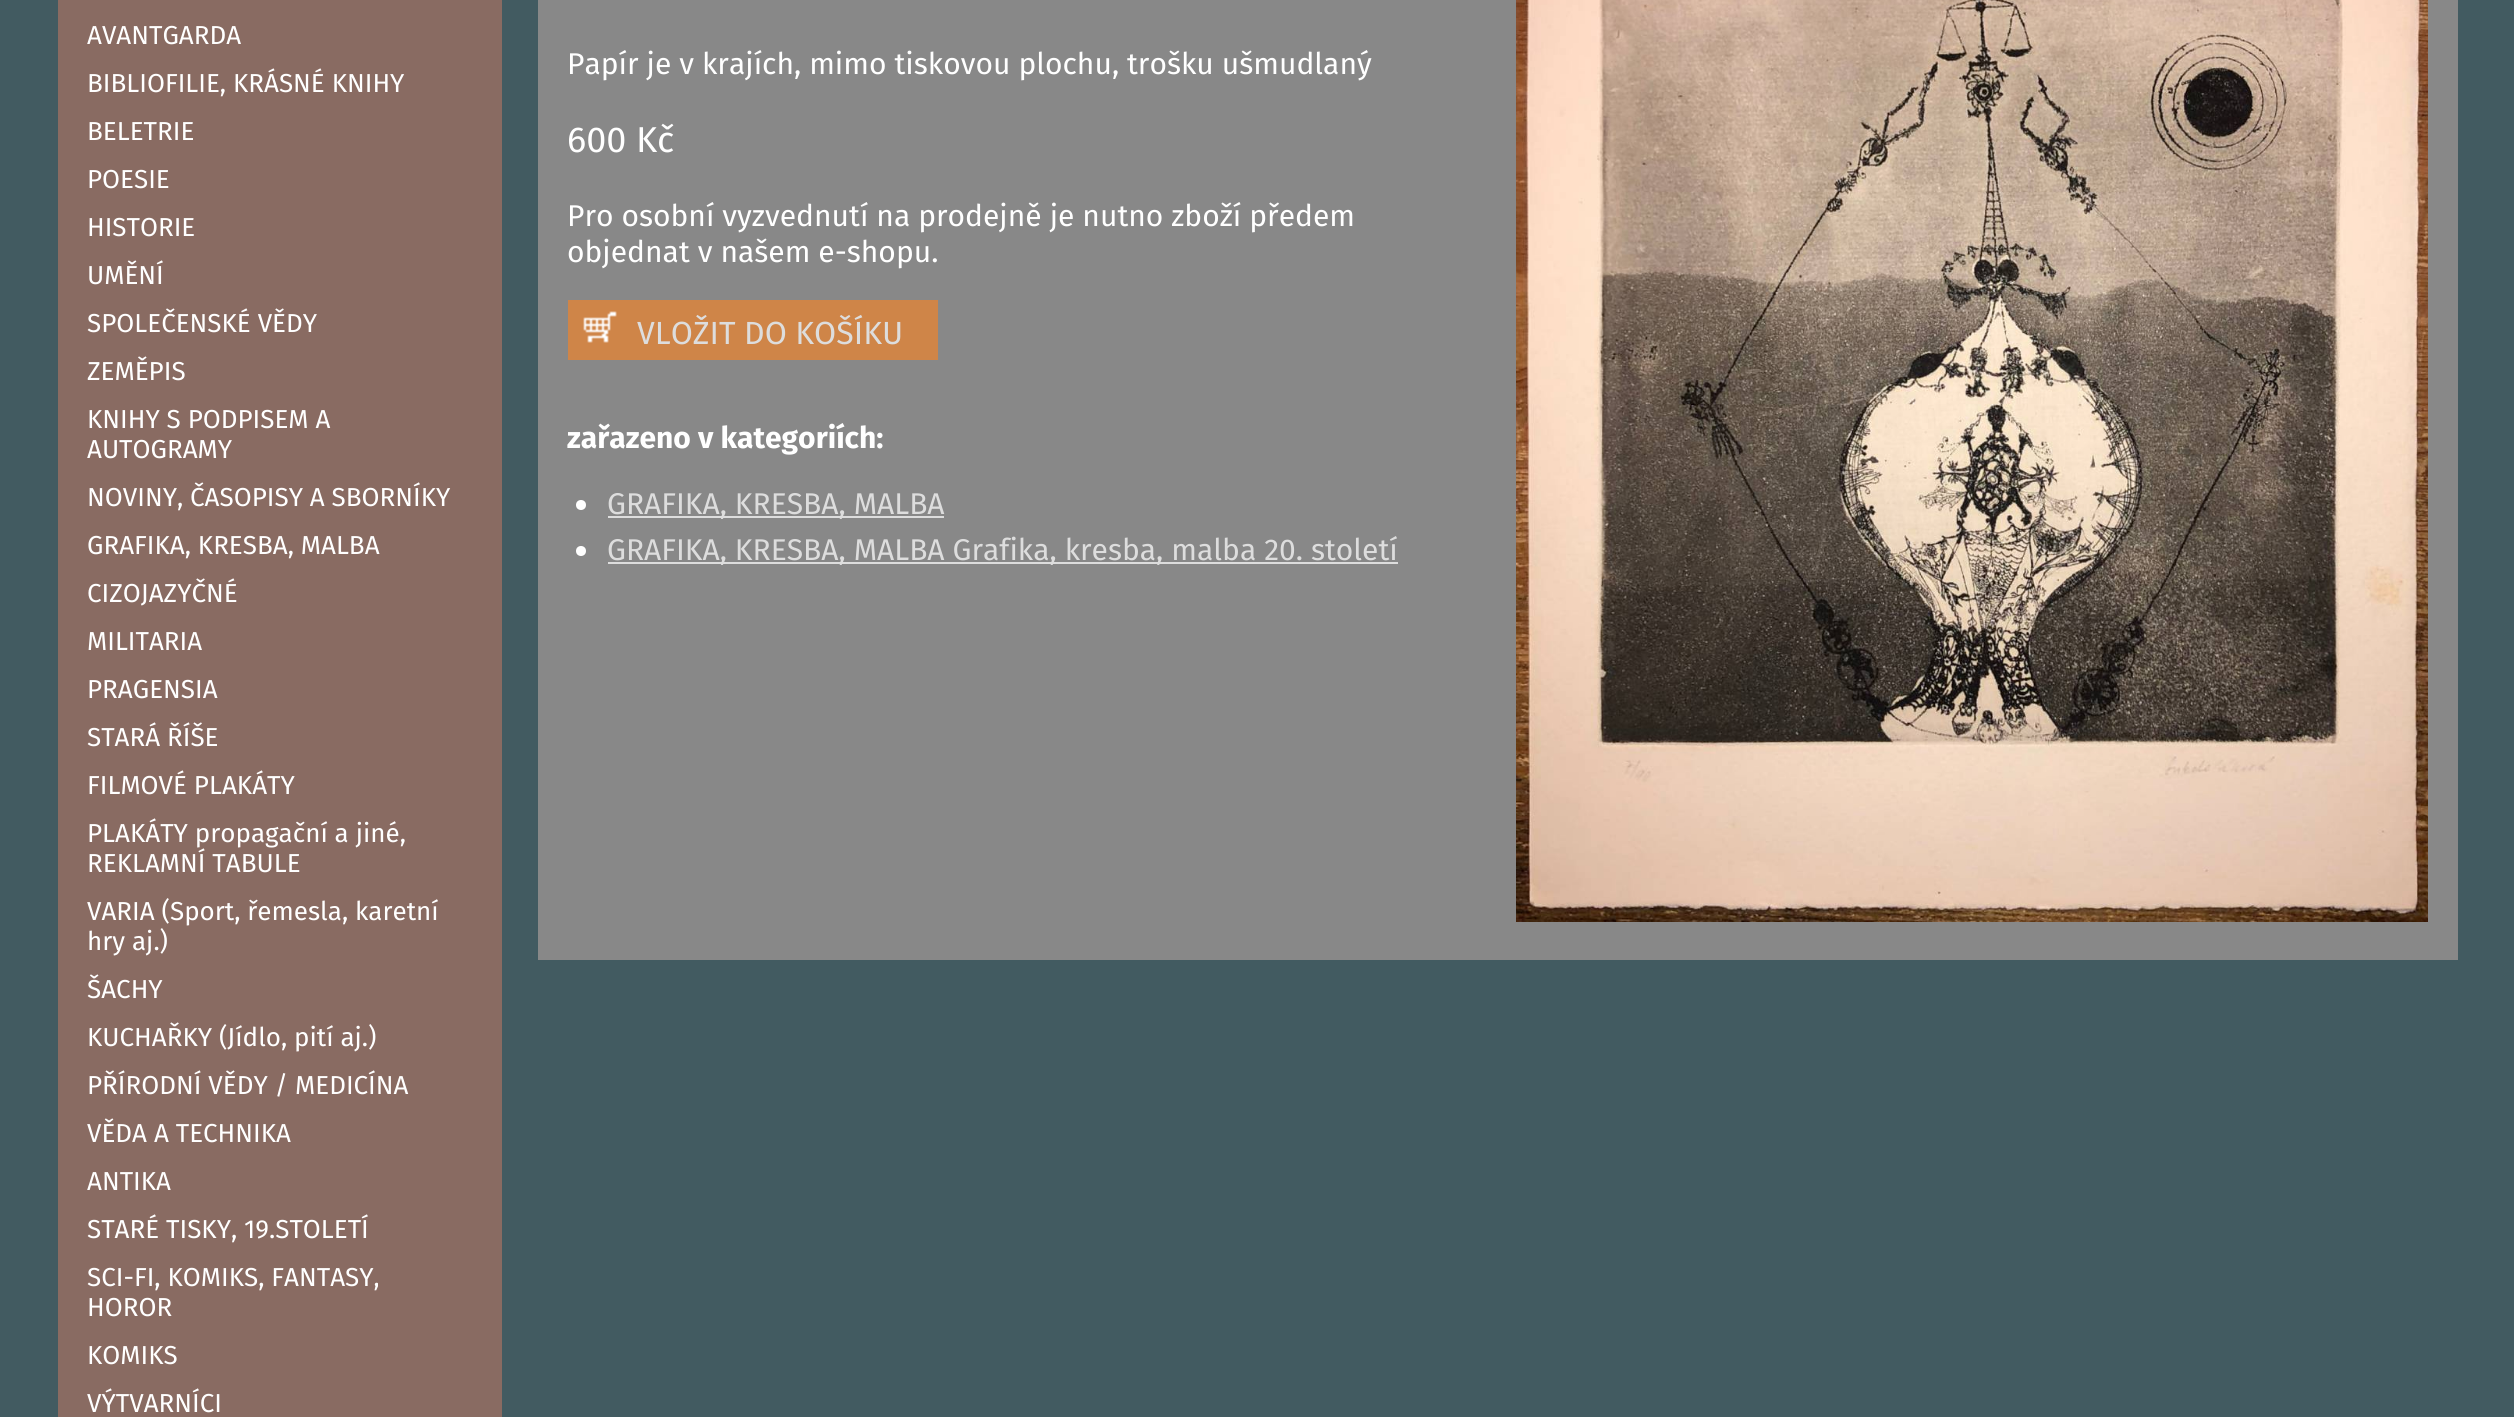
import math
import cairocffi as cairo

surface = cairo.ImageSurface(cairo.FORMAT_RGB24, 2514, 1417)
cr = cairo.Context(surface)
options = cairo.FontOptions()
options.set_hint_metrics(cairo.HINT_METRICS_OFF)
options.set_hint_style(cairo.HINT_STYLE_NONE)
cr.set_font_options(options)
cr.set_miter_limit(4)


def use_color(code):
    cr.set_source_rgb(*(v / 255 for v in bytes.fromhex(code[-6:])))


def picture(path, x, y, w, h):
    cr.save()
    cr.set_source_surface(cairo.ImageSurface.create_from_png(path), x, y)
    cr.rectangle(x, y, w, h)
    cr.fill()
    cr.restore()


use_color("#425b61")
cr.paint()
use_color("#896b62")
cr.rectangle(58, 0, 444, 1417)
cr.fill()
cr.select_font_face("Fira Sans")
cr.set_font_size(26)
use_color("#ffffff")
cr.move_to(87, 44)
cr.show_text("AVANTGARDA")
cr.move_to(87, 92)
cr.show_text("BIBLIOFILIE, KRÁSNÉ KNIHY")
cr.move_to(87, 140)
cr.show_text("BELETRIE")
cr.move_to(87, 188)
cr.show_text("POESIE")
cr.move_to(87, 236)
cr.show_text("HISTORIE")
cr.move_to(87, 284)
cr.show_text("UMĚNÍ")
cr.move_to(87, 332)
cr.show_text("SPOLEČENSKÉ VĚDY")
cr.move_to(87, 380)
cr.show_text("ZEMĚPIS")
cr.move_to(87, 428)
cr.show_text("KNIHY S PODPISEM A")
cr.move_to(87, 458)
cr.show_text("AUTOGRAMY")
cr.move_to(87, 506)
cr.show_text("NOVINY, ČASOPISY A SBORNÍKY")
cr.move_to(87, 554)
cr.show_text("GRAFIKA, KRESBA, MALBA")
cr.move_to(87, 602)
cr.show_text("CIZOJAZYČNÉ")
cr.move_to(87, 650)
cr.show_text("MILITARIA")
cr.move_to(87, 698)
cr.show_text("PRAGENSIA")
cr.move_to(87, 746)
cr.show_text("STARÁ ŘÍŠE")
cr.move_to(87, 794)
cr.show_text("FILMOVÉ PLAKÁTY")
cr.move_to(87, 842)
cr.show_text("PLAKÁTY propagační a jiné,")
cr.move_to(87, 872)
cr.show_text("REKLAMNÍ TABULE")
cr.move_to(87, 920)
cr.show_text("VARIA (Sport, řemesla, karetní")
cr.move_to(87, 950)
cr.show_text("hry aj.)")
cr.move_to(87, 998)
cr.show_text("ŠACHY")
cr.move_to(87, 1046)
cr.show_text("KUCHAŘKY (Jídlo, pití aj.)")
cr.move_to(87, 1094)
cr.show_text("PŘÍRODNÍ VĚDY / MEDICÍNA")
cr.move_to(87, 1142)
cr.show_text("VĚDA A TECHNIKA")
cr.move_to(87, 1190)
cr.show_text("ANTIKA")
cr.move_to(87, 1238)
cr.show_text("STARÉ TISKY, 19.STOLETÍ")
cr.move_to(87, 1286)
cr.show_text("SCI-FI, KOMIKS, FANTASY,")
cr.move_to(87, 1316)
cr.show_text("HOROR")
cr.move_to(87, 1364)
cr.show_text("KOMIKS")
cr.move_to(87, 1412)
cr.show_text("VÝTVARNÍCI")
use_color("#888888")
cr.rectangle(538, 0, 1920, 960)
cr.fill()
cr.set_font_size(30)
use_color("#ffffff")
cr.move_to(567, 74)
cr.show_text("Papír je v krajích, mimo tiskovou plochu, trošku ušmudlaný")
cr.set_font_size(36)
cr.move_to(567, 152)
cr.show_text("600 Kč")
cr.set_font_size(30)
cr.move_to(567, 226)
cr.show_text("Pro osobní vyzvednutí na prodejně je nutno zboží předem")
cr.move_to(567, 262)
cr.show_text("objednat v našem e-shopu.")
use_color("#cf8548")
cr.rectangle(568, 300, 370, 60)
cr.fill()
picture("img1.png", 583, 311, 34, 32)
cr.set_font_size(32)
use_color("#dddddd")
cr.move_to(637, 344)
cr.show_text("VLOŽIT DO KOŠÍKU")
cr.select_font_face("Fira Sans", cairo.FONT_SLANT_NORMAL, cairo.FONT_WEIGHT_BOLD)
cr.set_font_size(30)
use_color("#ffffff")
cr.move_to(567, 448)
cr.show_text("zařazeno v kategoriích:")
cr.new_path()
cr.arc(581, 505, 5, 0, 2 * math.pi)
cr.fill()
use_color("#dddddd")
cr.rectangle(608, 516, 336, 2)
cr.fill()
cr.select_font_face("Fira Sans")
cr.move_to(607, 514)
cr.show_text("GRAFIKA, KRESBA, MALBA")
use_color("#ffffff")
cr.new_path()
cr.arc(581, 551, 5, 0, 2 * math.pi)
cr.fill()
use_color("#dddddd")
cr.rectangle(608, 562, 790, 2)
cr.fill()
cr.move_to(607, 560)
cr.show_text("GRAFIKA, KRESBA, MALBA Grafika, kresba, malba 20. století")
picture("img2.png", 1516, 0, 912, 922)
surface.write_to_png("result.png")
